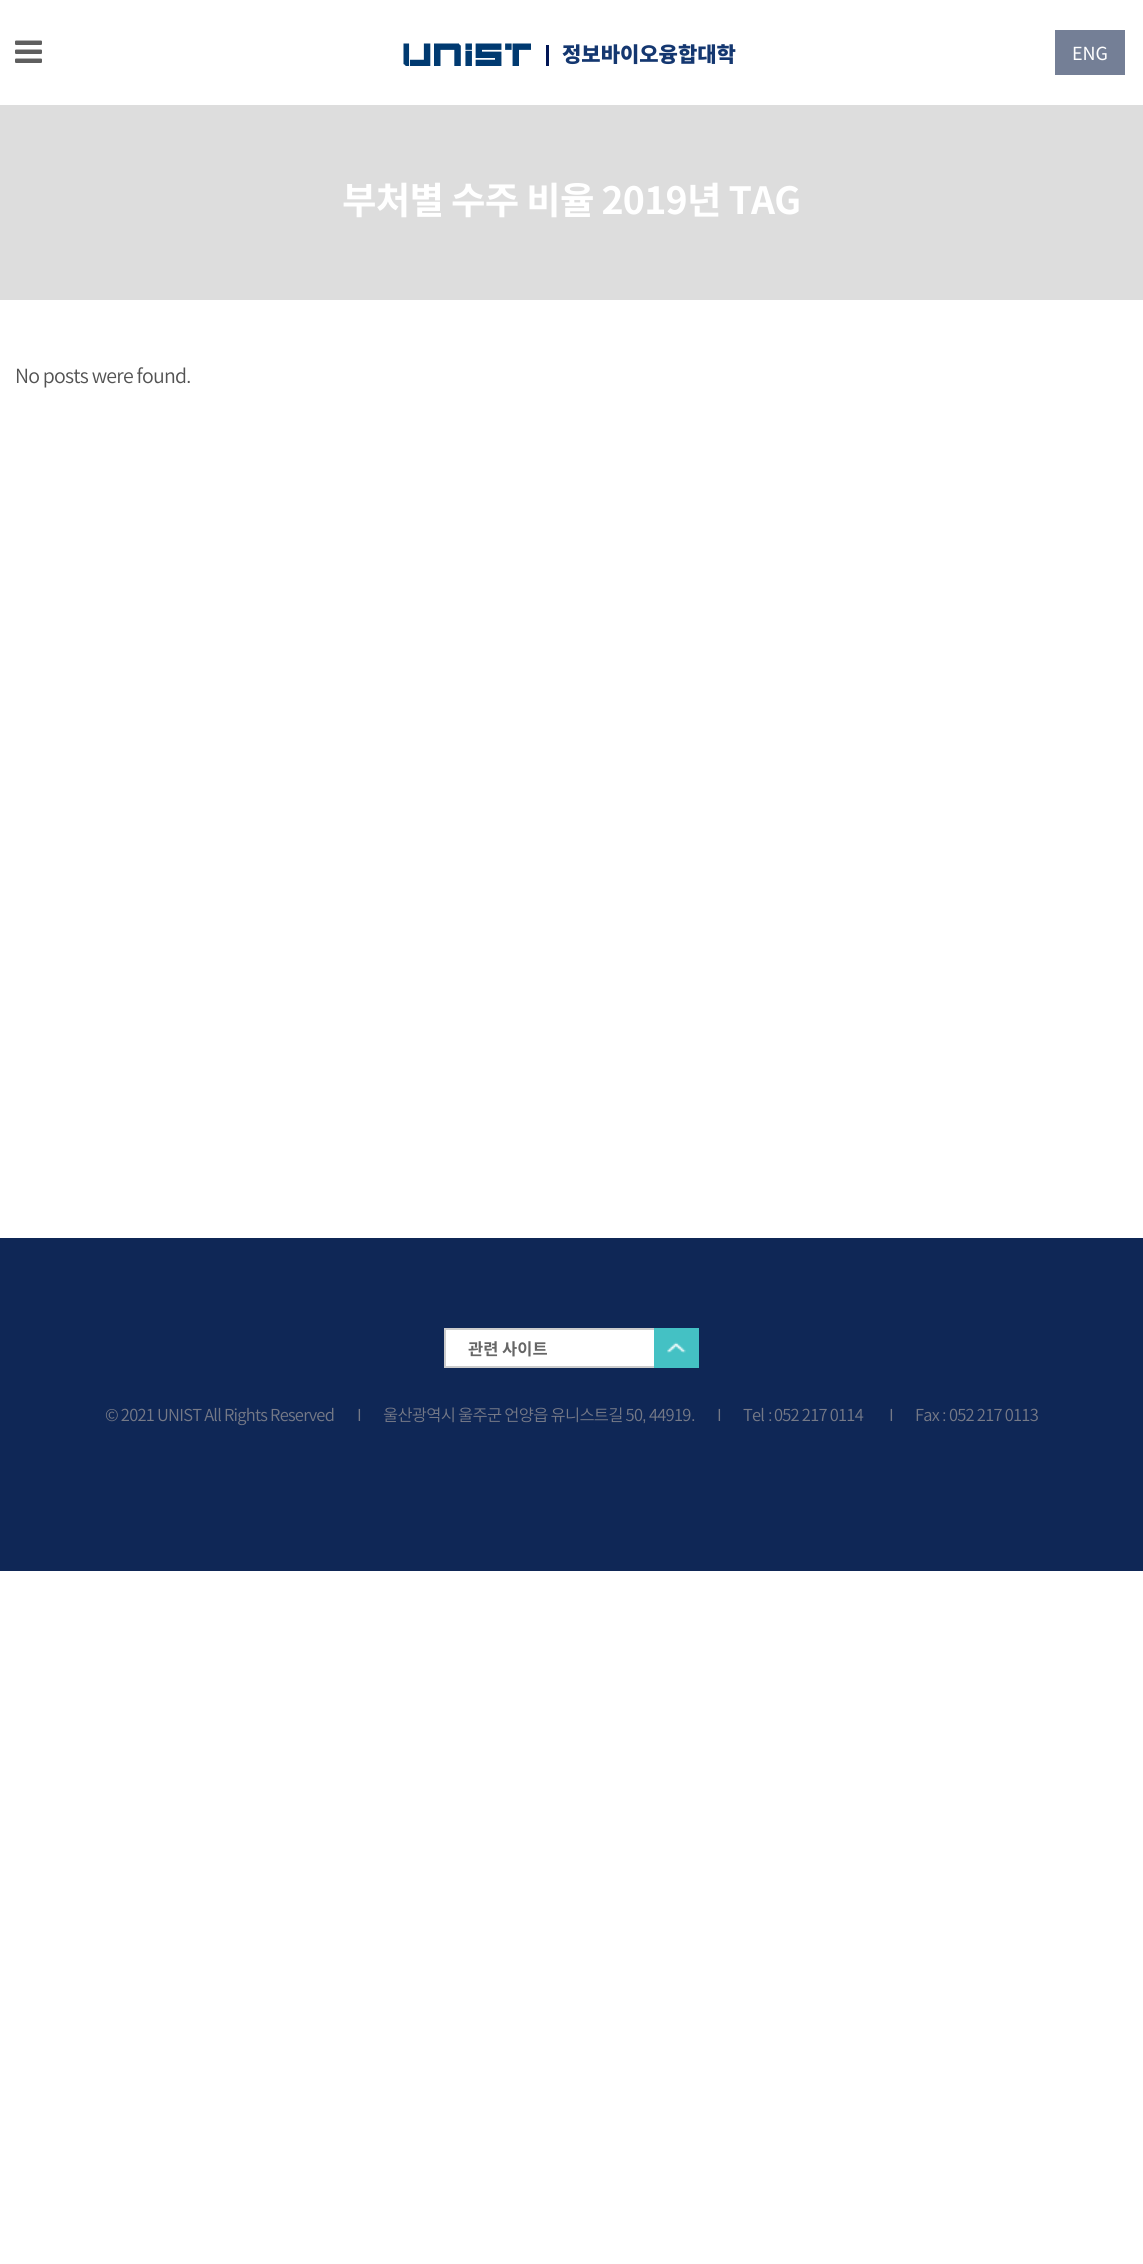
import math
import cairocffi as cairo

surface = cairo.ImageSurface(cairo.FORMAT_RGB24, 1143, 2264)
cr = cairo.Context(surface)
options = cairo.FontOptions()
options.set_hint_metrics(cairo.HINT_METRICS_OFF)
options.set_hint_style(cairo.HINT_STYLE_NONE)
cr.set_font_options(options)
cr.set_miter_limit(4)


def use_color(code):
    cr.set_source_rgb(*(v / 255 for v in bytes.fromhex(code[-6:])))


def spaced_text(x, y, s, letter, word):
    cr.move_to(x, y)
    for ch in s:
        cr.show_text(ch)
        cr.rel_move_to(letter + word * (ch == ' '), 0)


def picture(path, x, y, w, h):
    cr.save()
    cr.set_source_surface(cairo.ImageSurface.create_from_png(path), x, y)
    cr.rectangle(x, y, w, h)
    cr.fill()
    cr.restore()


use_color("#ffffff")
cr.paint()
picture("img1.png", 15, 40, 27, 23)
picture("img2.png", 403, 43, 128, 23)
use_color("#011655")
cr.rectangle(546, 45, 3, 21)
cr.fill()
cr.select_font_face("Noto Sans CJK KR Black")
cr.set_font_size(21)
use_color("#143770")
cr.move_to(562, 62)
cr.show_text("정보바이오융합대학")
use_color("#747f96")
cr.rectangle(1055, 30, 70, 45)
cr.fill()
cr.select_font_face("Noto Sans CJK KR")
cr.set_font_size(18)
use_color("#ffffff")
cr.move_to(1072, 60)
cr.show_text("ENG")
use_color("#dddddd")
cr.rectangle(0, 105, 1143, 195)
cr.fill()
cr.select_font_face("Noto Sans CJK KR", cairo.FONT_SLANT_NORMAL, cairo.FONT_WEIGHT_BOLD)
cr.set_font_size(37.5)
use_color("#ffffff")
spaced_text(342, 214, "부처별 수주 비율 2019년 TAG", -0.75, 0)
cr.select_font_face("Noto Sans CJK KR Light")
cr.set_font_size(19.5)
use_color("#535353")
spaced_text(15, 383, "No posts were found", -0.75, 0)
cr.select_font_face("Liberation Sans")
spaced_text(186, 383, ".", -0.75, 0)
use_color("#0f2756")
cr.rectangle(0, 1238, 1143, 333)
cr.fill()
use_color("#ffffff")
cr.rectangle(446, 1330, 208, 36)
cr.fill()
cr.rectangle(445, 1329, 253, 38)
use_color("#cccccc")
cr.stroke()
cr.select_font_face("Noto Sans CJK KR", cairo.FONT_SLANT_NORMAL, cairo.FONT_WEIGHT_BOLD)
cr.set_font_size(16.5)
use_color("#666666")
cr.move_to(468, 1355)
cr.show_text("관련 사이트")
use_color("#44c1c4")
cr.rectangle(654, 1328, 45, 40)
cr.fill()
picture("img3.png", 667, 1342, 19, 11)
cr.select_font_face("Noto Sans CJK KR Light")
use_color("#757987")
spaced_text(105, 1421, "© 2021 UNIST All Rights Reserved", -0.75, 0)
spaced_text(357, 1421, "I", -0.75, 0)
spaced_text(383, 1421, "울산광역시 울주군 언양읍 유니스트길 50", -0.75, 0)
spaced_text(649, 1421, "44919", -0.75, 0)
spaced_text(717, 1421, "I", -0.75, 0)
spaced_text(743, 1421, "Tel", -0.75, 0)
cr.select_font_face("Liberation Sans")
spaced_text(768, 1421, ":", -0.75, 0)
cr.select_font_face("Noto Sans CJK KR Light")
spaced_text(774, 1421, "052 217 0114", -0.75, 0)
spaced_text(889, 1421, "I", -0.75, 0)
spaced_text(915, 1421, "Fax", -0.75, 0)
cr.select_font_face("Liberation Sans")
spaced_text(942, 1421, ":", -0.75, 0)
cr.select_font_face("Noto Sans CJK KR Light")
spaced_text(949, 1421, "052 217 0113", -0.75, 0)
cr.select_font_face("Liberation Sans")
spaced_text(642, 1421, ",", -0.75, 0)
spaced_text(691, 1421, ".", -0.75, 0)
surface.write_to_png("result.png")
